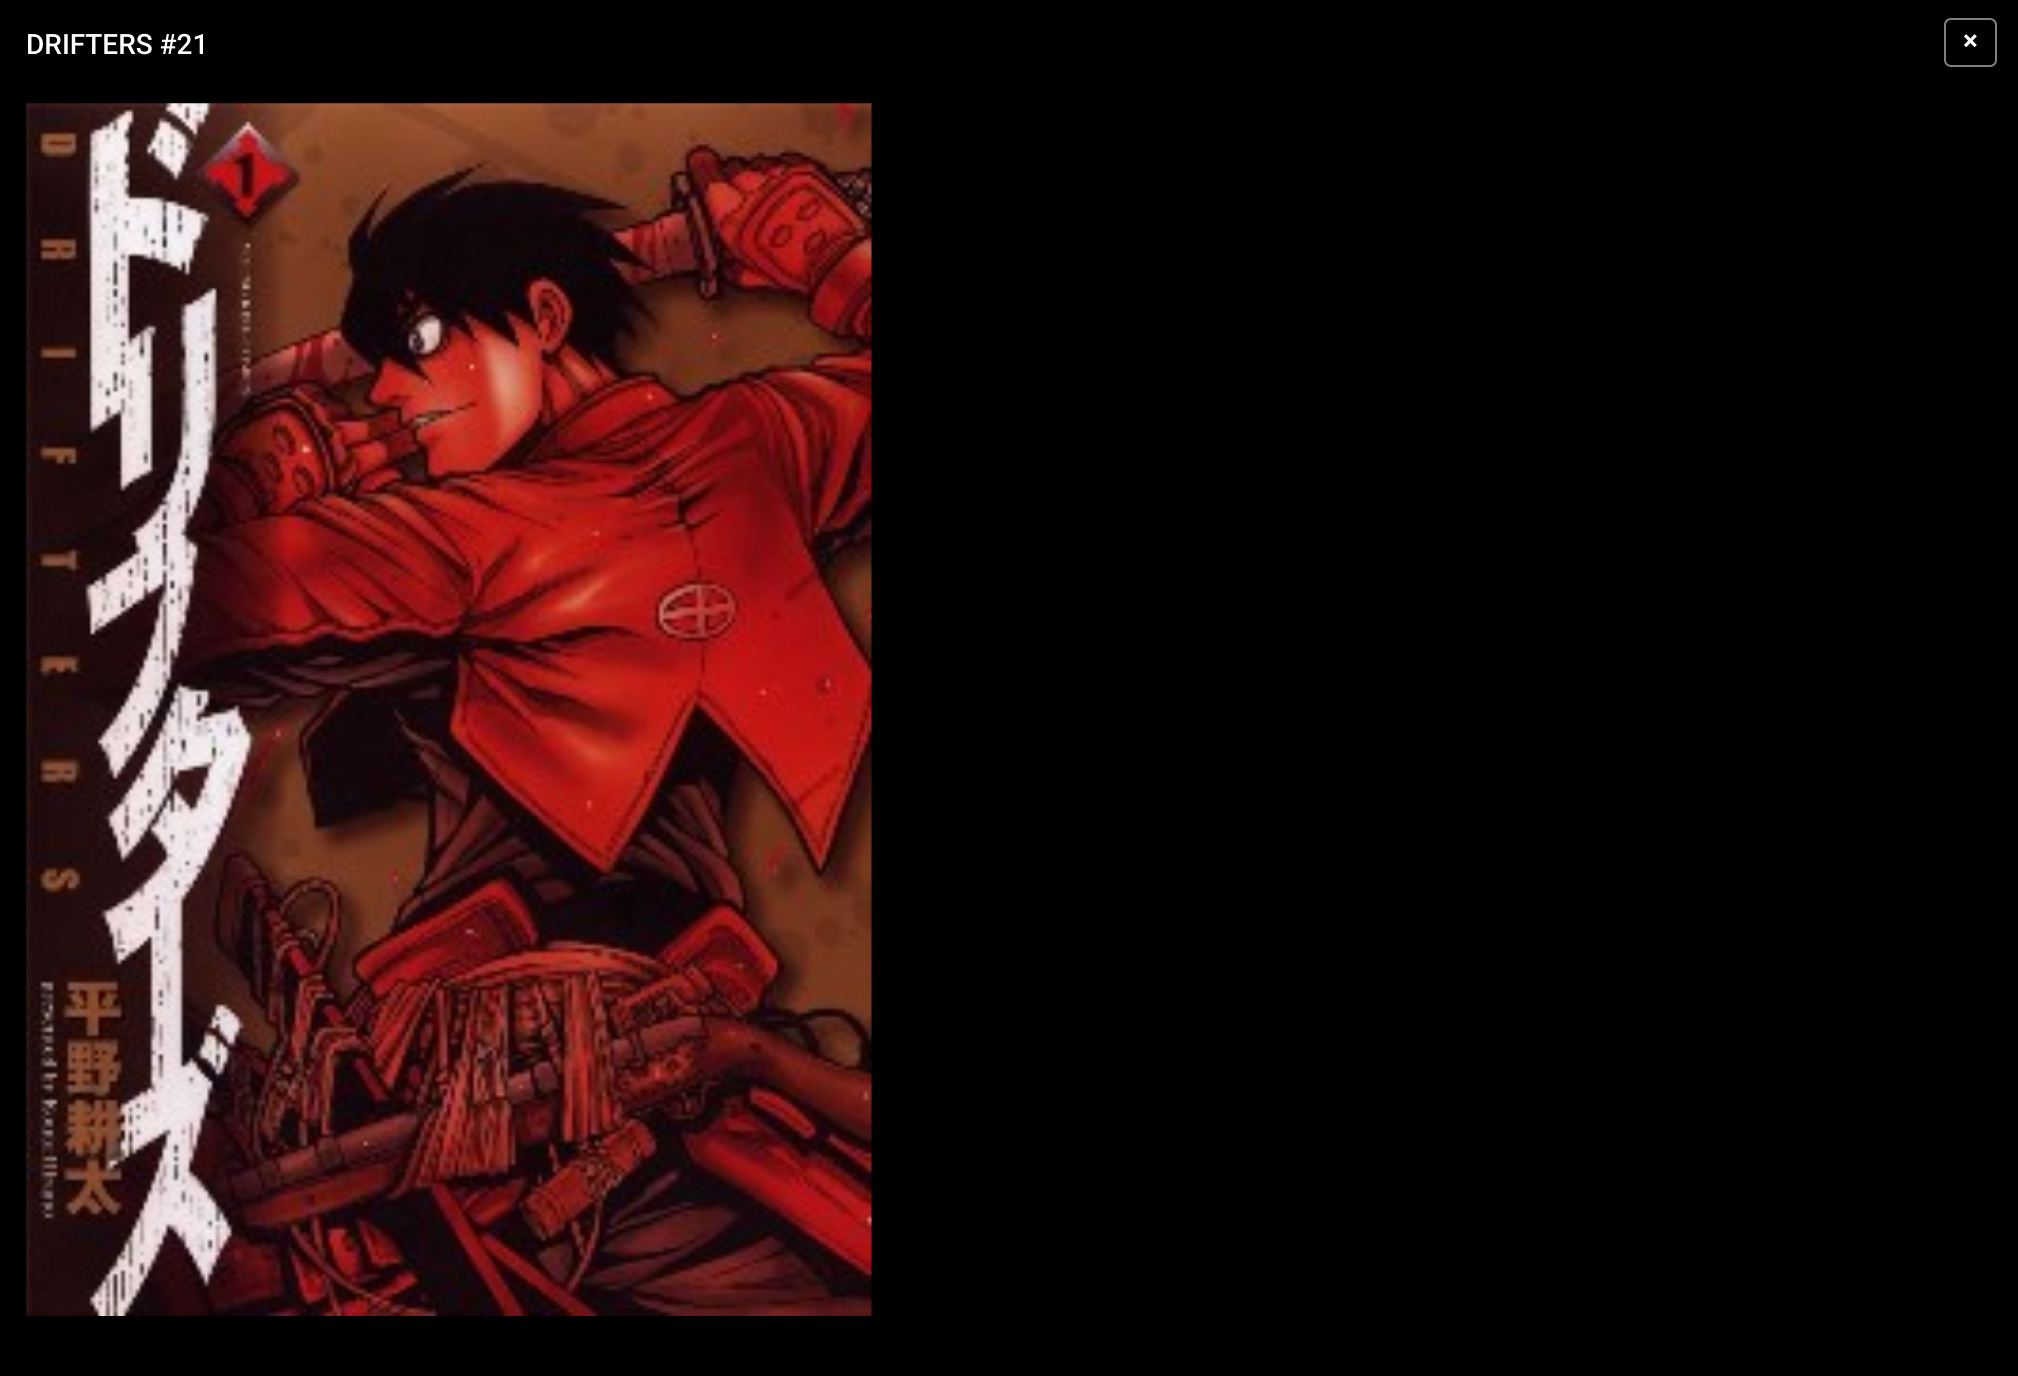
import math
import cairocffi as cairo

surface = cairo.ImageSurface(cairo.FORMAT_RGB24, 2018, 1376)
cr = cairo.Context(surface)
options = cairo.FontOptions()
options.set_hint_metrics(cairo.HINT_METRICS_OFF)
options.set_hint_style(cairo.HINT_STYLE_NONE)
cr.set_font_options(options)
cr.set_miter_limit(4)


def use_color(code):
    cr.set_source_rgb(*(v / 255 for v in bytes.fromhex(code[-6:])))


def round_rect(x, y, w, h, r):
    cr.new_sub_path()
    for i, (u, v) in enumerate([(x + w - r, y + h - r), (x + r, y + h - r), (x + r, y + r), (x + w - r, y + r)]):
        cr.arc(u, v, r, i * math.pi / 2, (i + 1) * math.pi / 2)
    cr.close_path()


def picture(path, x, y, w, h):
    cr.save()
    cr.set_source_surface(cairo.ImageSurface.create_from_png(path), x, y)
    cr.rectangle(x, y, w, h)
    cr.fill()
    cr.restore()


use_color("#000000")
cr.paint()
cr.select_font_face("Roboto Medium")
cr.set_font_size(28)
use_color("#ffffff")
cr.move_to(26, 54)
cr.show_text("DRIFTERS #21")
picture("img1.png", 26, 103, 846, 1213)
round_rect(1945, 19, 51, 47, 6)
use_color("#808080")
cr.stroke()
cr.select_font_face("Roboto", cairo.FONT_SLANT_NORMAL, cairo.FONT_WEIGHT_BOLD)
use_color("#ffffff")
cr.move_to(1963, 50)
cr.show_text("×")
surface.write_to_png("result.png")
